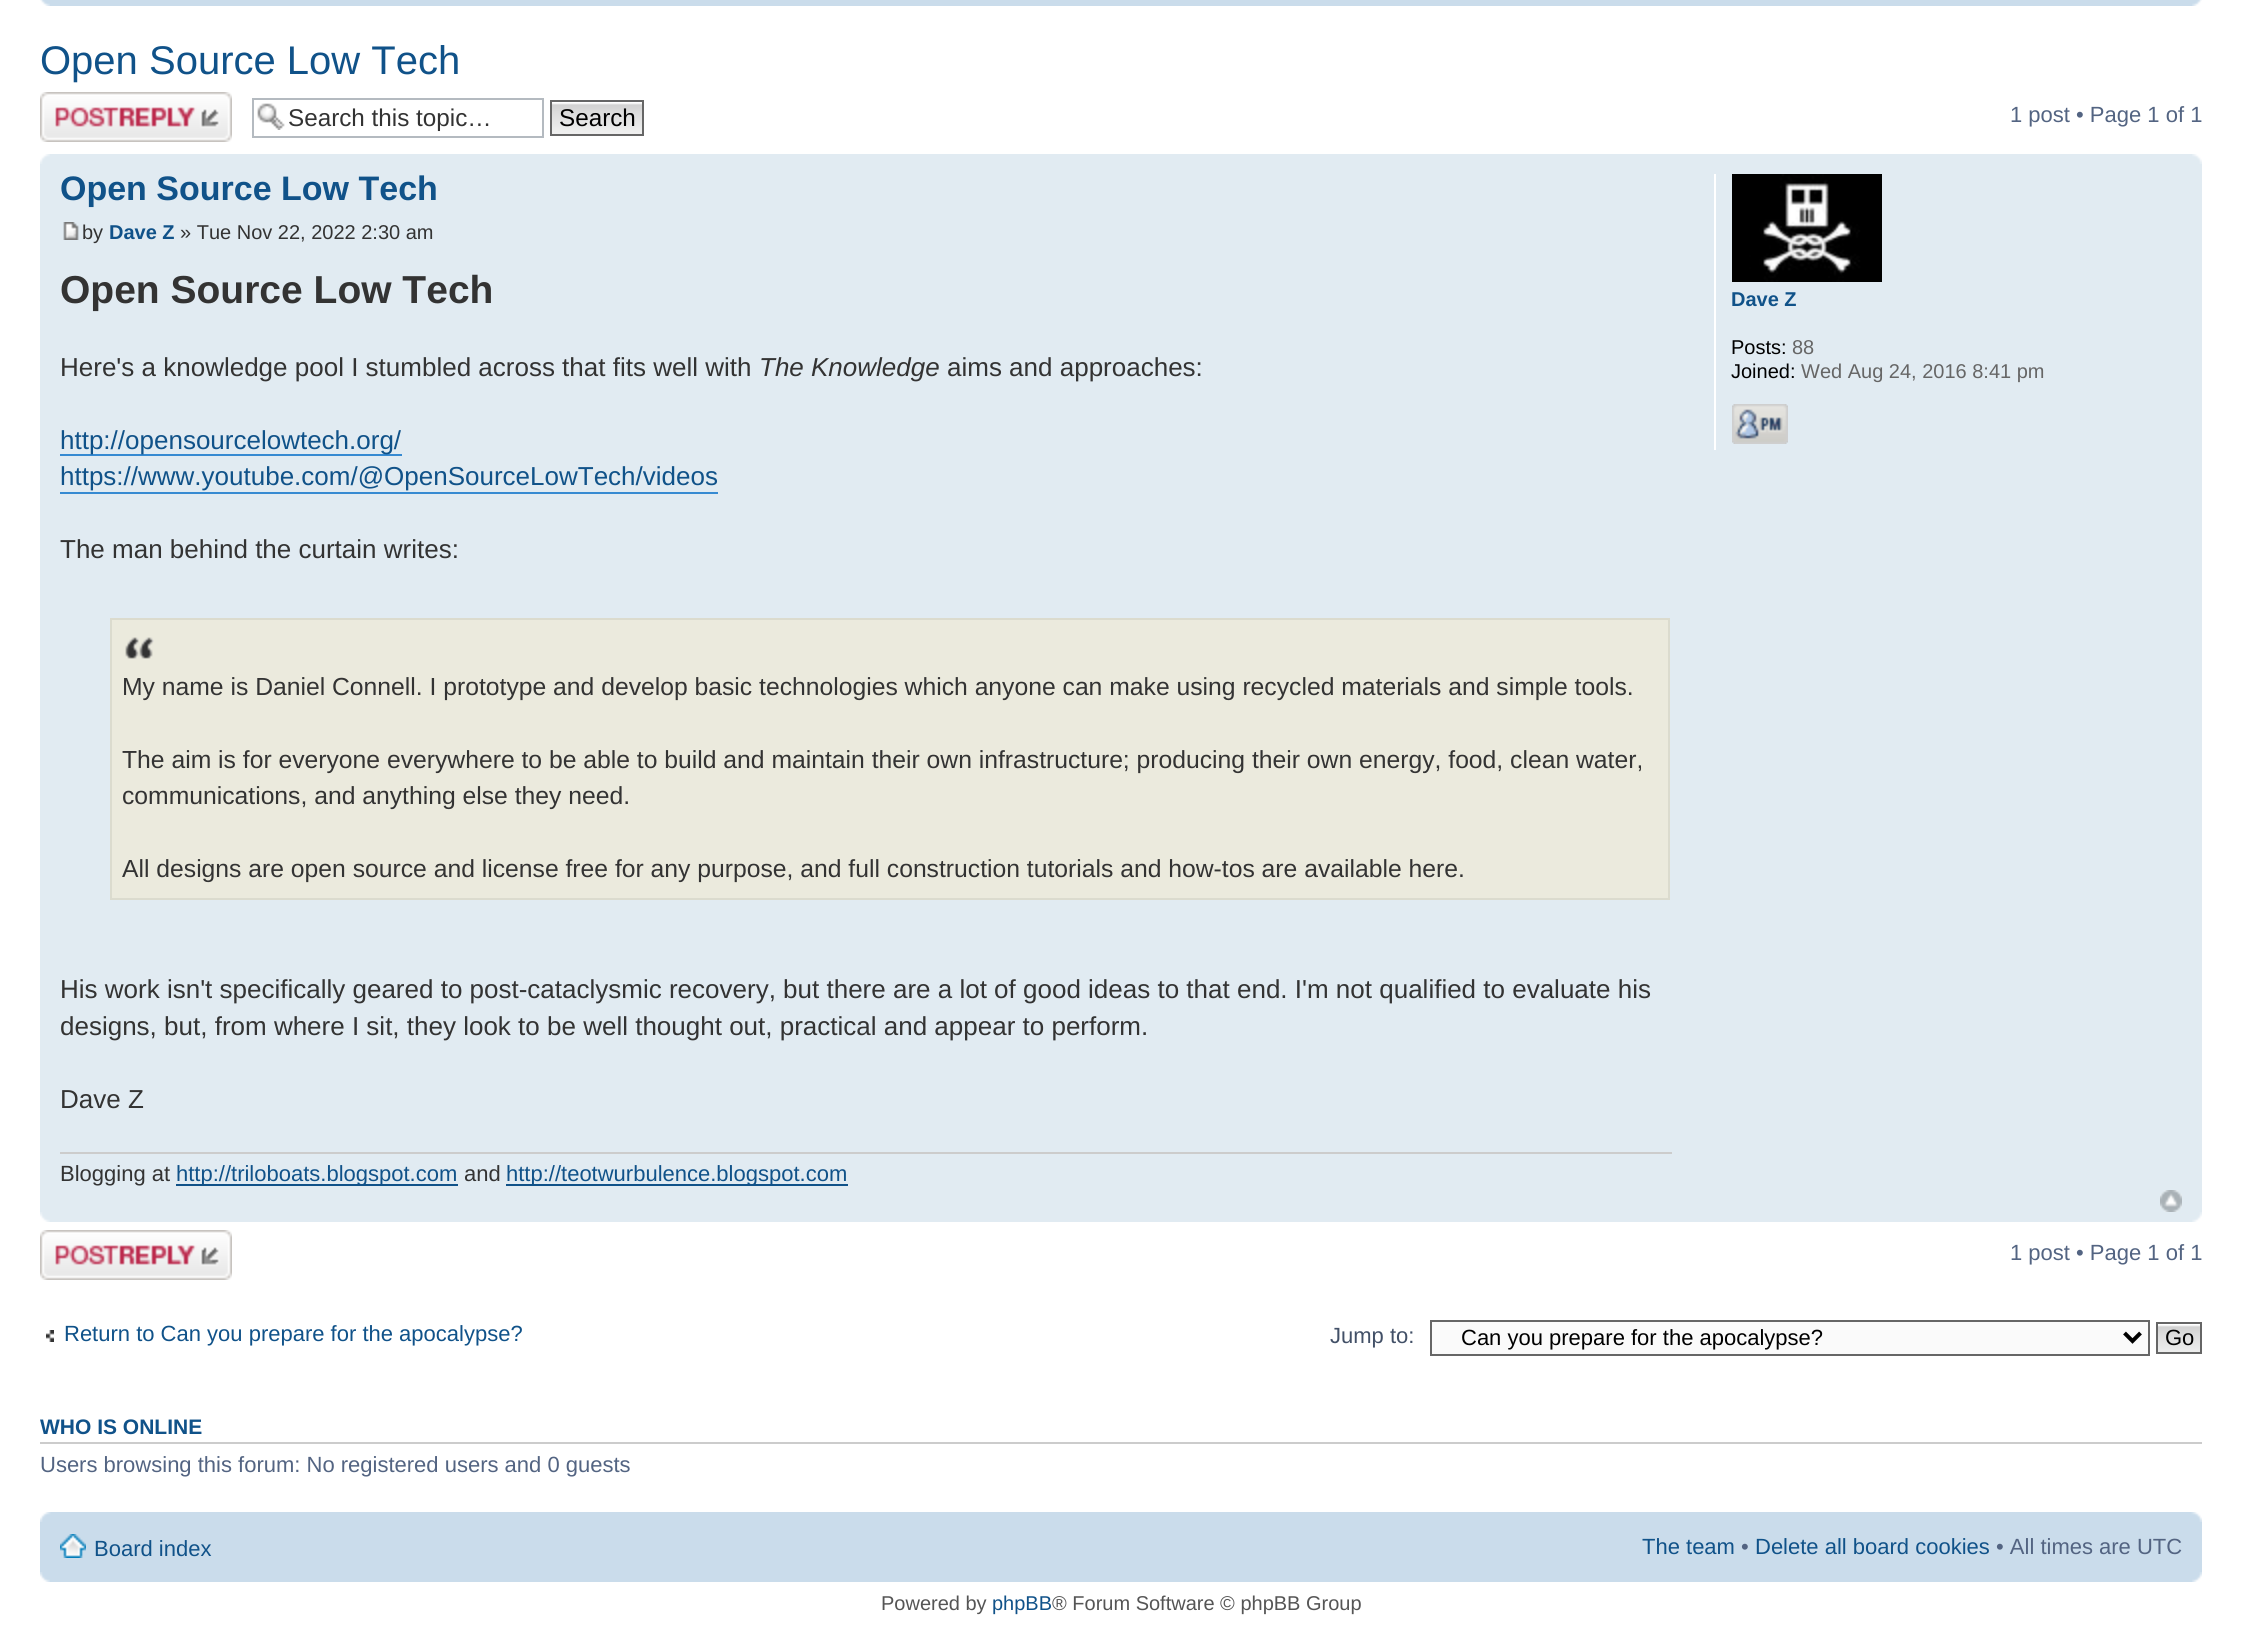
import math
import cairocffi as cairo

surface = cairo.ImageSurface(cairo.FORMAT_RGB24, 2241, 1647)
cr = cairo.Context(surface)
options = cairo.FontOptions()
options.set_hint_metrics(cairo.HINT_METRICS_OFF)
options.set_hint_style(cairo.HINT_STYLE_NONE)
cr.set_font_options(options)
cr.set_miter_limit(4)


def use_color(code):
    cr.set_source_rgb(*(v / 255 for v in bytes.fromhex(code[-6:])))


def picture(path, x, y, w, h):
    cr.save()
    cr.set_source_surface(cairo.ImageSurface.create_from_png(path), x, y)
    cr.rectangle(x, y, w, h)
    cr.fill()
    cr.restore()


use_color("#ffffff")
cr.paint()
use_color("#cadceb")
cr.rectangle(40, 0, 2162, 6)
cr.fill()
picture("img1.png", 40, 0, 10, 6)
picture("img2.png", 2192, 0, 10, 6)
cr.select_font_face("Liberation Sans")
cr.set_font_size(40)
use_color("#105289")
cr.move_to(40, 74)
cr.show_text("Open Source Low Tech")
picture("img3.png", 40, 92, 192, 50)
picture("img4.png", 257, 103, 28, 27)
cr.rectangle(253, 99, 290, 38)
use_color("#b4bac0")
cr.stroke()
cr.set_font_size(24.25)
use_color("#333333")
cr.move_to(288, 126)
cr.show_text("Search this topic…")
picture("img5.png", 552, 102, 90, 32)
cr.rectangle(551, 101, 92, 34)
use_color("#666666")
cr.stroke()
use_color("#000000")
cr.move_to(559, 126)
cr.show_text("Search")
cr.set_font_size(22)
use_color("#536482")
cr.move_to(2010, 122)
cr.show_text("1 post • Page 1 of 1")
use_color("#e1ebf2")
cr.rectangle(40, 154, 2162, 1068)
cr.fill()
picture("img6.png", 40, 154, 10, 10)
picture("img7.png", 2192, 154, 10, 10)
cr.select_font_face("Liberation Sans", cairo.FONT_SLANT_NORMAL, cairo.FONT_WEIGHT_BOLD)
cr.set_font_size(34)
use_color("#105289")
cr.move_to(60, 200)
cr.show_text("Open Source Low Tech")
picture("img8.png", 63, 222, 16, 18)
cr.select_font_face("Liberation Sans")
cr.set_font_size(20)
use_color("#333333")
cr.move_to(82, 239)
cr.show_text("by")
cr.select_font_face("Liberation Sans", cairo.FONT_SLANT_NORMAL, cairo.FONT_WEIGHT_BOLD)
use_color("#105289")
cr.move_to(109, 239)
cr.show_text("Dave Z")
cr.select_font_face("Liberation Sans")
use_color("#333333")
cr.move_to(180, 239)
cr.show_text("» Tue Nov 22, 2022 2:30 am")
cr.select_font_face("Liberation Sans", cairo.FONT_SLANT_NORMAL, cairo.FONT_WEIGHT_BOLD)
cr.set_font_size(39)
cr.move_to(60, 303)
cr.show_text("Open Source Low Tech")
cr.select_font_face("Liberation Sans")
cr.set_font_size(26)
cr.move_to(60, 376)
cr.show_text("Here's a knowledge pool I stumbled across that fits well with")
cr.select_font_face("Liberation Sans", cairo.FONT_SLANT_ITALIC)
cr.move_to(759, 376)
cr.show_text("The Knowledge")
cr.select_font_face("Liberation Sans")
cr.move_to(947, 376)
cr.show_text("aims and approaches:")
use_color("#368ad2")
cr.rectangle(60, 454, 342, 2)
cr.fill()
use_color("#105289")
cr.move_to(60, 449)
cr.show_text("http://opensourcelowtech.org/")
cr.move_to(60, 485)
cr.show_text("https://www.youtube.com/@OpenSourceLowTech/videos")
use_color("#368ad2")
cr.rectangle(60, 492, 658, 2)
cr.fill()
use_color("#333333")
cr.move_to(60, 558)
cr.show_text("The man behind the curtain writes:")
use_color("#ebeadd")
cr.rectangle(112, 620, 1556, 278)
cr.fill()
picture("img9.png", 125, 637, 29, 22)
cr.rectangle(111, 619, 1558, 280)
use_color("#dbdbce")
cr.stroke()
cr.set_font_size(24.7)
use_color("#333333")
cr.move_to(122, 695)
cr.show_text("My name is Daniel Connell. I prototype and develop basic technologies which anyone can make using recycled materials and simple tools.")
cr.move_to(122, 768)
cr.show_text("The aim is for everyone everywhere to be able to build and maintain their own infrastructure; producing their own energy, food, clean water,")
cr.move_to(122, 804)
cr.show_text("communications, and anything else they need.")
cr.move_to(122, 877)
cr.show_text("All designs are open source and license free for any purpose, and full construction tutorials and how-tos are available here.")
cr.set_font_size(26)
cr.move_to(60, 998)
cr.show_text("His work isn't specifically geared to post-cataclysmic recovery, but there are a lot of good ideas to that end. I'm not qualified to evaluate his")
cr.move_to(60, 1035)
cr.show_text("designs, but, from where I sit, they look to be well thought out, practical and appear to perform.")
cr.move_to(60, 1108)
cr.show_text("Dave Z")
use_color("#cccccc")
cr.rectangle(60, 1152, 1612, 2)
cr.fill()
cr.set_font_size(22)
use_color("#333333")
cr.move_to(60, 1181)
cr.show_text("Blogging at")
use_color("#105289")
cr.rectangle(176, 1184, 282, 2)
cr.fill()
cr.move_to(176, 1181)
cr.show_text("http://triloboats.blogspot.com")
use_color("#333333")
cr.move_to(464, 1181)
cr.show_text("and")
use_color("#105289")
cr.rectangle(506, 1184, 342, 2)
cr.fill()
cr.move_to(506, 1181)
cr.show_text("http://teotwurbulence.blogspot.com")
use_color("#ffffff")
cr.rectangle(1714, 174, 2, 276)
cr.fill()
picture("img10.png", 1732, 174, 150, 108)
cr.select_font_face("Liberation Sans", cairo.FONT_SLANT_NORMAL, cairo.FONT_WEIGHT_BOLD)
cr.set_font_size(20)
use_color("#105289")
cr.move_to(1731, 306)
cr.show_text("Dave Z")
cr.select_font_face("Liberation Sans")
use_color("#000000")
cr.move_to(1731, 354)
cr.show_text("Posts:")
use_color("#666666")
cr.move_to(1792, 354)
cr.show_text("88")
use_color("#000000")
cr.move_to(1731, 378)
cr.show_text("Joined:")
use_color("#666666")
cr.move_to(1801, 378)
cr.show_text("Wed Aug 24, 2016 8:41 pm")
picture("img11.png", 1732, 404, 56, 40)
picture("img12.png", 1732, 404, 56, 40)
picture("img13.png", 2160, 1190, 22, 22)
picture("img14.png", 40, 1212, 10, 10)
picture("img15.png", 2192, 1212, 10, 10)
picture("img3.png", 40, 1230, 192, 50)
cr.set_font_size(22)
use_color("#536482")
cr.move_to(2010, 1260)
cr.show_text("1 post • Page 1 of 1")
picture("img16.png", 46, 1330, 8, 12)
use_color("#105289")
cr.move_to(64, 1341)
cr.show_text("Return to Can you prepare for the apocalypse?")
use_color("#425067")
cr.move_to(1330, 1343)
cr.show_text("Jump to:")
use_color("#fafafa")
cr.rectangle(1431, 1321, 718, 34)
cr.fill_preserve()
use_color("#666666")
cr.stroke()
cr.new_path()
cr.move_to(2124.5, 1333)
cr.line_to(2132.5, 1341)
cr.line_to(2140.5, 1333)
use_color("#000000")
cr.set_line_width(4)
cr.stroke()
cr.move_to(1461, 1345)
cr.show_text("Can you prepare for the apocalypse?")
picture("img17.png", 2158, 1324, 42, 28)
cr.rectangle(2157, 1323, 44, 30)
use_color("#666666")
cr.set_line_width(2)
cr.stroke()
use_color("#000000")
cr.move_to(2165, 1345)
cr.show_text("Go")
use_color("#cccccc")
cr.rectangle(40, 1442, 2162, 2)
cr.fill()
cr.select_font_face("Liberation Sans", cairo.FONT_SLANT_NORMAL, cairo.FONT_WEIGHT_BOLD)
cr.set_font_size(21)
use_color("#105289")
cr.move_to(40, 1434)
cr.show_text("WHO IS ONLINE")
cr.select_font_face("Liberation Sans")
cr.set_font_size(22)
use_color("#536482")
cr.move_to(40, 1472)
cr.show_text("Users browsing this forum: No registered users and 0 guests")
use_color("#cadceb")
cr.rectangle(40, 1512, 2162, 70)
cr.fill()
picture("img18.png", 40, 1512, 11, 10)
picture("img19.png", 2191, 1512, 11, 10)
picture("img20.png", 60, 1534, 26, 24)
use_color("#105289")
cr.move_to(94, 1556)
cr.show_text("Board index")
cr.move_to(1642, 1554)
cr.show_text("The team")
use_color("#536482")
cr.move_to(1741, 1554)
cr.show_text("•")
use_color("#105289")
cr.move_to(1755, 1554)
cr.show_text("Delete all board cookies")
use_color("#536482")
cr.move_to(1996, 1554)
cr.show_text("• All times are UTC")
picture("img21.png", 40, 1572, 10, 10)
picture("img22.png", 2192, 1572, 10, 10)
cr.set_font_size(20)
use_color("#555555")
cr.move_to(881, 1610)
cr.show_text("Powered by")
use_color("#105289")
cr.move_to(992, 1610)
cr.show_text("phpBB")
use_color("#555555")
cr.move_to(1052, 1610)
cr.show_text("® Forum Software © phpBB Group")
surface.write_to_png("result.png")
